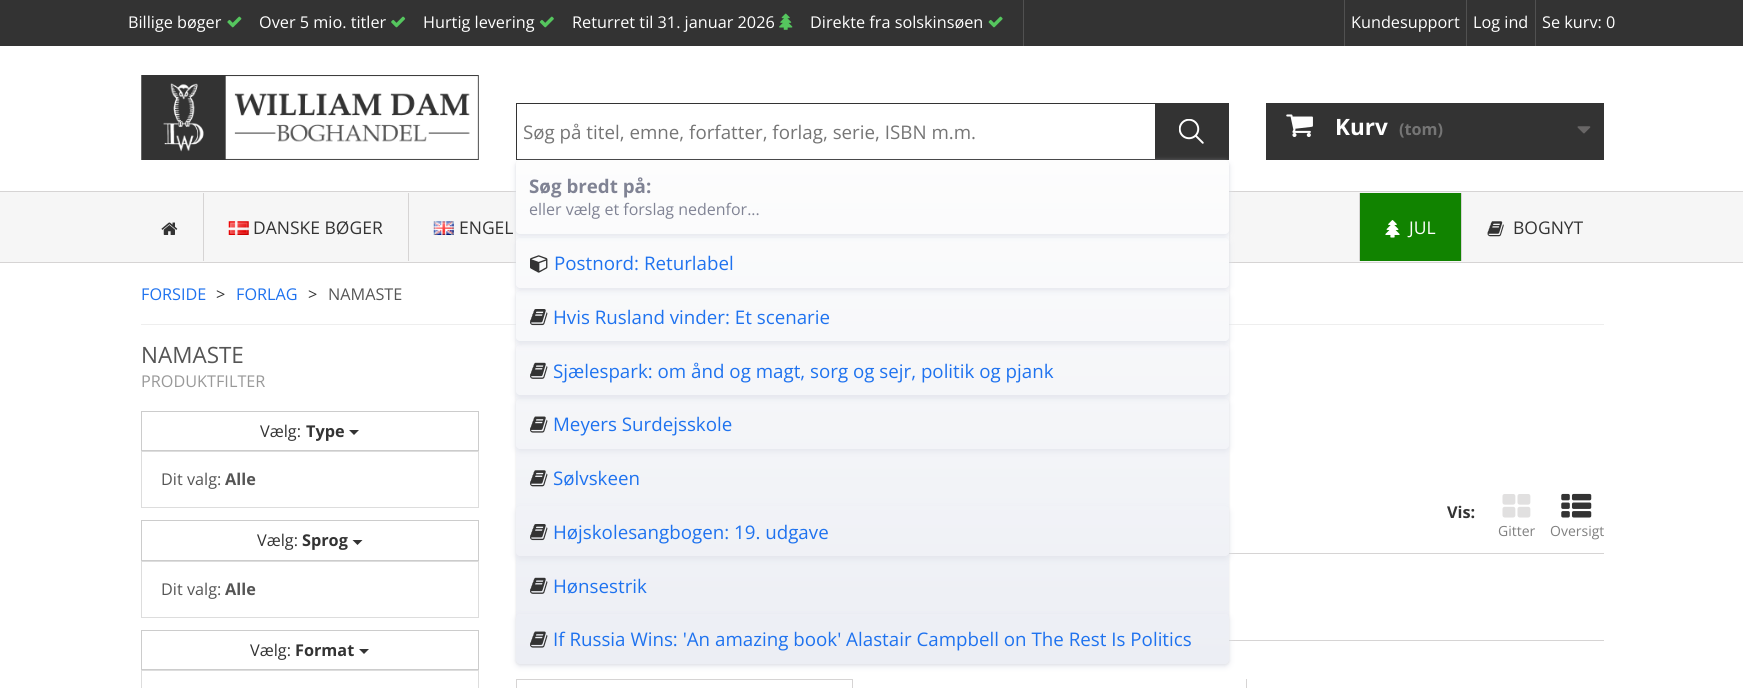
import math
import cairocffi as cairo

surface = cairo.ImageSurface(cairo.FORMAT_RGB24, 1743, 688)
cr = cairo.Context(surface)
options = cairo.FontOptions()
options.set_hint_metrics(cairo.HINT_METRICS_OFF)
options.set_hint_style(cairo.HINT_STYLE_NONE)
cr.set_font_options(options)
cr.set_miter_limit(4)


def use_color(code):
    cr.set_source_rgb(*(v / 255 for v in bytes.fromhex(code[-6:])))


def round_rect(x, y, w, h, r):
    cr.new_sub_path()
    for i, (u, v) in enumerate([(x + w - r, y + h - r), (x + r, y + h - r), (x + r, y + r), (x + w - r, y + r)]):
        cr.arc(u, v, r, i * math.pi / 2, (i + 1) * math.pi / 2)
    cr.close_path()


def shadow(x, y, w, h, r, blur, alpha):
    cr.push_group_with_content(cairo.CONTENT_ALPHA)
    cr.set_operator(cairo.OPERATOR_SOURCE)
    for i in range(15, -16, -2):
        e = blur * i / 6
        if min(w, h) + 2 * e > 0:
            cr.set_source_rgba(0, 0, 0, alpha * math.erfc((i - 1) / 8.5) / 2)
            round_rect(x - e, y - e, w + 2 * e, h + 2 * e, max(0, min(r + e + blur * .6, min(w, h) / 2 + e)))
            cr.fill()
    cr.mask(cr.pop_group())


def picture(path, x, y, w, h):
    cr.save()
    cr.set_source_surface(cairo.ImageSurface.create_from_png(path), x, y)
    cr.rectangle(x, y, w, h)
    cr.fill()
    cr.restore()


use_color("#ffffff")
cr.paint()
use_color("#333333")
cr.rectangle(0, 0, 1743, 46)
cr.fill()
use_color("#515151")
cr.rectangle(1023, 0, 1, 46)
cr.fill()
cr.select_font_face("Open Sans")
cr.set_font_size(16.25)
use_color("#ffffff")
cr.move_to(128, 28)
cr.show_text("Billige bøger")
picture("img1.png", 227, 16, 15, 12)
cr.move_to(259, 28)
cr.show_text("Over 5 mio. titler")
picture("img2.png", 391, 16, 15, 12)
cr.move_to(423, 28)
cr.show_text("Hurtig levering")
picture("img3.png", 539, 16, 15, 12)
cr.move_to(572, 28)
cr.show_text("Returret til 31. januar 2026")
picture("img4.png", 779, 13, 14, 17)
cr.move_to(810, 28)
cr.show_text("Direkte fra solskinsøen")
picture("img5.png", 988, 16, 15, 12)
use_color("#515151")
cr.rectangle(1344, 0, 1, 46)
cr.fill()
use_color("#ffffff")
cr.move_to(1351, 28)
cr.show_text("Kundesupport")
use_color("#515151")
cr.rectangle(1466, 0, 1, 46)
cr.fill()
use_color("#ffffff")
cr.move_to(1473, 28)
cr.show_text("Log ind")
use_color("#515151")
cr.rectangle(1535, 0, 1, 46)
cr.fill()
use_color("#ffffff")
cr.move_to(1542, 28)
cr.show_text("Se kurv: 0")
picture("img6.png", 141, 75, 338, 85)
use_color("#333333")
cr.rectangle(516, 103, 639, 1)
cr.fill()
cr.rectangle(516, 159, 639, 1)
cr.fill()
cr.rectangle(516, 103, 1, 57)
cr.fill()
cr.set_font_size(18.75)
use_color("#757575")
cr.move_to(523, 139)
cr.show_text("Søg på titel, emne, forfatter, forlag, serie, ISBN m.m.")
use_color("#333333")
cr.rectangle(1155, 103, 74, 57)
cr.fill()
picture("img7.png", 1179, 119, 25, 25)
use_color("#f6f6f6")
cr.rectangle(-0.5, 191.5, 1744, 71)
cr.fill_preserve()
use_color("#d6d4d4")
cr.set_line_width(1)
cr.stroke()
use_color("#eeeeee")
cr.rectangle(141, 324, 1463, 1)
cr.fill()
use_color("#d6d4d4")
cr.rectangle(1229, 553, 375, 1)
cr.fill()
cr.rectangle(1229, 640, 375, 1)
cr.fill()
use_color("#000000")
shadow(516, 161, 713, 504, 4, 1, 0.1)
gradient = cairo.LinearGradient(873, 160, 873, 664)
gradient.add_color_stop_rgba(0, 0.992, 0.992, 0.992, 1)
gradient.add_color_stop_rgba(1, 0.925, 0.933, 0.957, 1)
cr.set_source(gradient)
round_rect(516, 160, 713, 504, 4)
cr.fill()
cr.save()
cr.set_fill_rule(cairo.FILL_RULE_EVEN_ODD)
cr.new_path()
cr.move_to(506, 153)
cr.line_to(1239, 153)
cr.line_to(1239, 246)
cr.line_to(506, 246)
cr.close_path()
cr.move_to(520, 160)
cr.line_to(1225, 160)
cr.curve_to(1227, 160, 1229, 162, 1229, 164)
cr.line_to(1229, 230)
cr.curve_to(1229, 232, 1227, 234, 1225, 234)
cr.line_to(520, 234)
cr.curve_to(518, 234, 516, 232, 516, 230)
cr.line_to(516, 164)
cr.curve_to(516, 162, 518, 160, 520, 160)
cr.close_path()
cr.clip()
use_color("#e3e5ec")
shadow(516, 163, 713, 73, 4, 3, 1)
cr.restore()
cr.select_font_face("Open Sans", cairo.FONT_SLANT_NORMAL, cairo.FONT_WEIGHT_BOLD)
use_color("#808394")
cr.move_to(529, 193)
cr.show_text("Søg bredt på:")
cr.select_font_face("Open Sans")
cr.set_font_size(16)
cr.move_to(529, 215)
cr.show_text("eller vælg et forslag nedenfor...")
cr.save()
cr.set_fill_rule(cairo.FILL_RULE_EVEN_ODD)
cr.new_path()
cr.move_to(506, 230)
cr.line_to(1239, 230)
cr.line_to(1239, 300)
cr.line_to(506, 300)
cr.close_path()
cr.move_to(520, 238)
cr.line_to(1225, 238)
cr.curve_to(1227, 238, 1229, 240, 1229, 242)
cr.line_to(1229, 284)
cr.curve_to(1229, 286, 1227, 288, 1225, 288)
cr.line_to(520, 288)
cr.curve_to(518, 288, 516, 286, 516, 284)
cr.line_to(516, 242)
cr.curve_to(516, 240, 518, 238, 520, 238)
cr.close_path()
cr.clip()
use_color("#e3e5ec")
shadow(516, 240, 713, 50, 4, 3, 1)
cr.restore()
picture("img8.png", 530, 255, 18, 18)
cr.set_font_size(18.75)
use_color("#1e72ef")
cr.move_to(554, 270)
cr.show_text("Postnord: Returlabel")
cr.save()
cr.set_fill_rule(cairo.FILL_RULE_EVEN_ODD)
cr.new_path()
cr.move_to(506, 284)
cr.line_to(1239, 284)
cr.line_to(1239, 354)
cr.line_to(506, 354)
cr.close_path()
cr.move_to(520, 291)
cr.line_to(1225, 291)
cr.curve_to(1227, 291, 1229, 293, 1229, 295)
cr.line_to(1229, 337)
cr.curve_to(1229, 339, 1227, 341, 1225, 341)
cr.line_to(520, 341)
cr.curve_to(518, 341, 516, 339, 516, 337)
cr.line_to(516, 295)
cr.curve_to(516, 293, 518, 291, 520, 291)
cr.close_path()
cr.clip()
use_color("#e3e5ec")
shadow(516, 294, 713, 50, 4, 3, 1)
cr.restore()
picture("img9.png", 530, 309, 18, 17)
cr.move_to(553, 324)
cr.show_text("Hvis Rusland vinder: Et scenarie")
cr.save()
cr.set_fill_rule(cairo.FILL_RULE_EVEN_ODD)
cr.new_path()
cr.move_to(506, 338)
cr.line_to(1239, 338)
cr.line_to(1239, 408)
cr.line_to(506, 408)
cr.close_path()
cr.move_to(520, 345)
cr.line_to(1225, 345)
cr.curve_to(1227, 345, 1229, 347, 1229, 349)
cr.line_to(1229, 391)
cr.curve_to(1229, 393, 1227, 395, 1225, 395)
cr.line_to(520, 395)
cr.curve_to(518, 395, 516, 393, 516, 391)
cr.line_to(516, 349)
cr.curve_to(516, 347, 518, 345, 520, 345)
cr.close_path()
cr.clip()
use_color("#e3e5ec")
shadow(516, 348, 713, 50, 4, 3, 1)
cr.restore()
picture("img10.png", 530, 362, 18, 17)
cr.move_to(553, 378)
cr.show_text("Sjælespark: om ånd og magt, sorg og sejr, politik og pjank")
cr.save()
cr.set_fill_rule(cairo.FILL_RULE_EVEN_ODD)
cr.new_path()
cr.move_to(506, 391)
cr.line_to(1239, 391)
cr.line_to(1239, 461)
cr.line_to(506, 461)
cr.close_path()
cr.move_to(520, 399)
cr.line_to(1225, 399)
cr.curve_to(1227, 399, 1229, 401, 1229, 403)
cr.line_to(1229, 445)
cr.curve_to(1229, 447, 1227, 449, 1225, 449)
cr.line_to(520, 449)
cr.curve_to(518, 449, 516, 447, 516, 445)
cr.line_to(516, 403)
cr.curve_to(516, 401, 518, 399, 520, 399)
cr.close_path()
cr.clip()
use_color("#e3e5ec")
shadow(516, 401, 713, 50, 4, 3, 1)
cr.restore()
picture("img11.png", 530, 416, 18, 17)
cr.move_to(553, 431)
cr.show_text("Meyers Surdejsskole")
picture("img12.png", 530, 470, 18, 17)
cr.move_to(553, 485)
cr.show_text("Sølvskeen")
cr.save()
cr.set_fill_rule(cairo.FILL_RULE_EVEN_ODD)
cr.new_path()
cr.move_to(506, 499)
cr.line_to(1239, 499)
cr.line_to(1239, 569)
cr.line_to(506, 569)
cr.close_path()
cr.move_to(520, 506)
cr.line_to(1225, 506)
cr.curve_to(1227, 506, 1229, 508, 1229, 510)
cr.line_to(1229, 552)
cr.curve_to(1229, 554, 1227, 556, 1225, 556)
cr.line_to(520, 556)
cr.curve_to(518, 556, 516, 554, 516, 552)
cr.line_to(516, 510)
cr.curve_to(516, 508, 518, 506, 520, 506)
cr.close_path()
cr.clip()
use_color("#e3e5ec")
shadow(516, 509, 713, 50, 4, 3, 1)
cr.restore()
picture("img13.png", 530, 524, 18, 17)
cr.move_to(553, 539)
cr.show_text("Højskolesangbogen: 19. udgave")
picture("img14.png", 530, 577, 18, 17)
cr.move_to(553, 593)
cr.show_text("Hønsestrik")
cr.save()
cr.set_fill_rule(cairo.FILL_RULE_EVEN_ODD)
cr.new_path()
cr.move_to(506, 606)
cr.line_to(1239, 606)
cr.line_to(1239, 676)
cr.line_to(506, 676)
cr.close_path()
cr.move_to(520, 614)
cr.line_to(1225, 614)
cr.curve_to(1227, 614, 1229, 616, 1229, 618)
cr.line_to(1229, 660)
cr.curve_to(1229, 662, 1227, 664, 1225, 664)
cr.line_to(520, 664)
cr.curve_to(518, 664, 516, 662, 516, 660)
cr.line_to(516, 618)
cr.curve_to(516, 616, 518, 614, 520, 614)
cr.close_path()
cr.clip()
use_color("#e3e5ec")
shadow(516, 616, 713, 50, 4, 3, 1)
cr.restore()
picture("img15.png", 530, 631, 18, 17)
cr.move_to(553, 646)
cr.show_text("If Russia Wins: 'An amazing book' Alastair Campbell on The Rest Is Politics")
use_color("#333333")
cr.rectangle(1266, 103, 338, 57)
cr.fill()
picture("img16.png", 1286, 114, 27, 23)
cr.select_font_face("Open Sans", cairo.FONT_SLANT_NORMAL, cairo.FONT_WEIGHT_BOLD)
cr.set_font_size(22.5)
use_color("#ffffff")
cr.move_to(1335, 135)
cr.show_text("Kurv")
cr.set_font_size(16.25)
use_color("#757575")
cr.move_to(1399, 135)
cr.show_text("(tom)")
picture("img17.png", 1577, 126, 14, 8)
picture("img18.png", 161, 222, 17, 13)
use_color("#d6d4d4")
cr.rectangle(203, 193, 1, 68)
cr.fill()
picture("img19.png", 228, 221, 21, 14)
cr.select_font_face("Open Sans")
cr.set_font_size(17.5)
use_color("#333333")
cr.move_to(253, 234)
cr.show_text("DANSKE BØGER")
use_color("#d6d4d4")
cr.rectangle(408, 193, 1, 68)
cr.fill()
picture("img20.png", 433, 221, 21, 14)
use_color("#333333")
cr.move_to(459, 234)
cr.show_text("ENGEL")
use_color("#118300")
cr.rectangle(1360, 193, 101, 68)
cr.fill()
use_color("#d6d4d4")
cr.rectangle(1359, 193, 1, 68)
cr.fill()
picture("img21.png", 1385, 220, 15, 18)
use_color("#ffffff")
cr.move_to(1409, 234)
cr.show_text("JUL")
use_color("#d6d4d4")
cr.rectangle(1461, 193, 1, 68)
cr.fill()
picture("img22.png", 1487, 221, 17, 16)
use_color("#333333")
cr.move_to(1513, 234)
cr.show_text("BOGNYT")
cr.set_font_size(16.25)
use_color("#1e72ef")
cr.move_to(141, 300)
cr.show_text("FORSIDE")
use_color("#333333")
cr.move_to(216, 300)
cr.show_text(">")
use_color("#1e72ef")
cr.move_to(236, 300)
cr.show_text("FORLAG")
use_color("#333333")
cr.move_to(308, 300)
cr.show_text(">")
use_color("#555555")
cr.move_to(328, 300)
cr.show_text("NAMASTE")
cr.set_font_size(22.5)
cr.move_to(141, 363)
cr.show_text("NAMASTE")
cr.set_font_size(16.25)
use_color("#999999")
cr.move_to(141, 387)
cr.show_text("PRODUKTFILTER")
cr.rectangle(141.5, 411.5, 337, 39)
use_color("#cccccc")
cr.stroke()
use_color("#333333")
cr.move_to(260, 437)
cr.show_text("Vælg:")
cr.select_font_face("Open Sans", cairo.FONT_SLANT_NORMAL, cairo.FONT_WEIGHT_BOLD)
cr.move_to(306, 437)
cr.show_text("Type")
cr.new_path()
cr.move_to(349, 430)
cr.line_to(359, 430)
cr.line_to(354, 435)
cr.close_path()
cr.fill()
cr.rectangle(141.5, 451.5, 337, 56)
use_color("#dddddd")
cr.stroke()
cr.select_font_face("Open Sans")
use_color("#555555")
cr.move_to(161, 485)
cr.show_text("Dit valg:")
cr.select_font_face("Open Sans", cairo.FONT_SLANT_NORMAL, cairo.FONT_WEIGHT_BOLD)
cr.move_to(225, 485)
cr.show_text("Alle")
cr.rectangle(141.5, 520.5, 337, 40)
use_color("#cccccc")
cr.stroke()
cr.select_font_face("Open Sans")
use_color("#333333")
cr.move_to(257, 546)
cr.show_text("Vælg:")
cr.select_font_face("Open Sans", cairo.FONT_SLANT_NORMAL, cairo.FONT_WEIGHT_BOLD)
cr.move_to(302, 546)
cr.show_text("Sprog")
cr.new_path()
cr.move_to(352.5, 540)
cr.line_to(362.5, 540)
cr.line_to(357.5, 545)
cr.close_path()
cr.fill()
cr.rectangle(141.5, 561.5, 337, 56)
use_color("#dddddd")
cr.stroke()
cr.select_font_face("Open Sans")
use_color("#555555")
cr.move_to(161, 595)
cr.show_text("Dit valg:")
cr.select_font_face("Open Sans", cairo.FONT_SLANT_NORMAL, cairo.FONT_WEIGHT_BOLD)
cr.move_to(225, 595)
cr.show_text("Alle")
cr.rectangle(141.5, 630.5, 337, 39)
use_color("#cccccc")
cr.stroke()
cr.select_font_face("Open Sans")
use_color("#333333")
cr.move_to(250, 656)
cr.show_text("Vælg:")
cr.select_font_face("Open Sans", cairo.FONT_SLANT_NORMAL, cairo.FONT_WEIGHT_BOLD)
cr.move_to(295, 656)
cr.show_text("Format")
cr.new_path()
cr.move_to(359, 649)
cr.line_to(369, 649)
cr.line_to(364, 654)
cr.close_path()
cr.fill()
cr.rectangle(141.5, 670.5, 337, 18)
use_color("#dddddd")
cr.stroke()
use_color("#333333")
cr.move_to(1447, 518)
cr.show_text("Vis:")
picture("img23.png", 1502, 494, 29, 24)
cr.select_font_face("Open Sans")
cr.set_font_size(14)
use_color("#808080")
cr.move_to(1498, 536)
cr.show_text("Gitter")
picture("img24.png", 1561, 493, 31, 25)
cr.move_to(1550, 536)
cr.show_text("Oversigt")
cr.rectangle(516.5, 679.5, 336, 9)
use_color("#d6d4d4")
cr.stroke()
cr.rectangle(1246, 679, 1, 9)
cr.fill()
surface.write_to_png("result.png")
